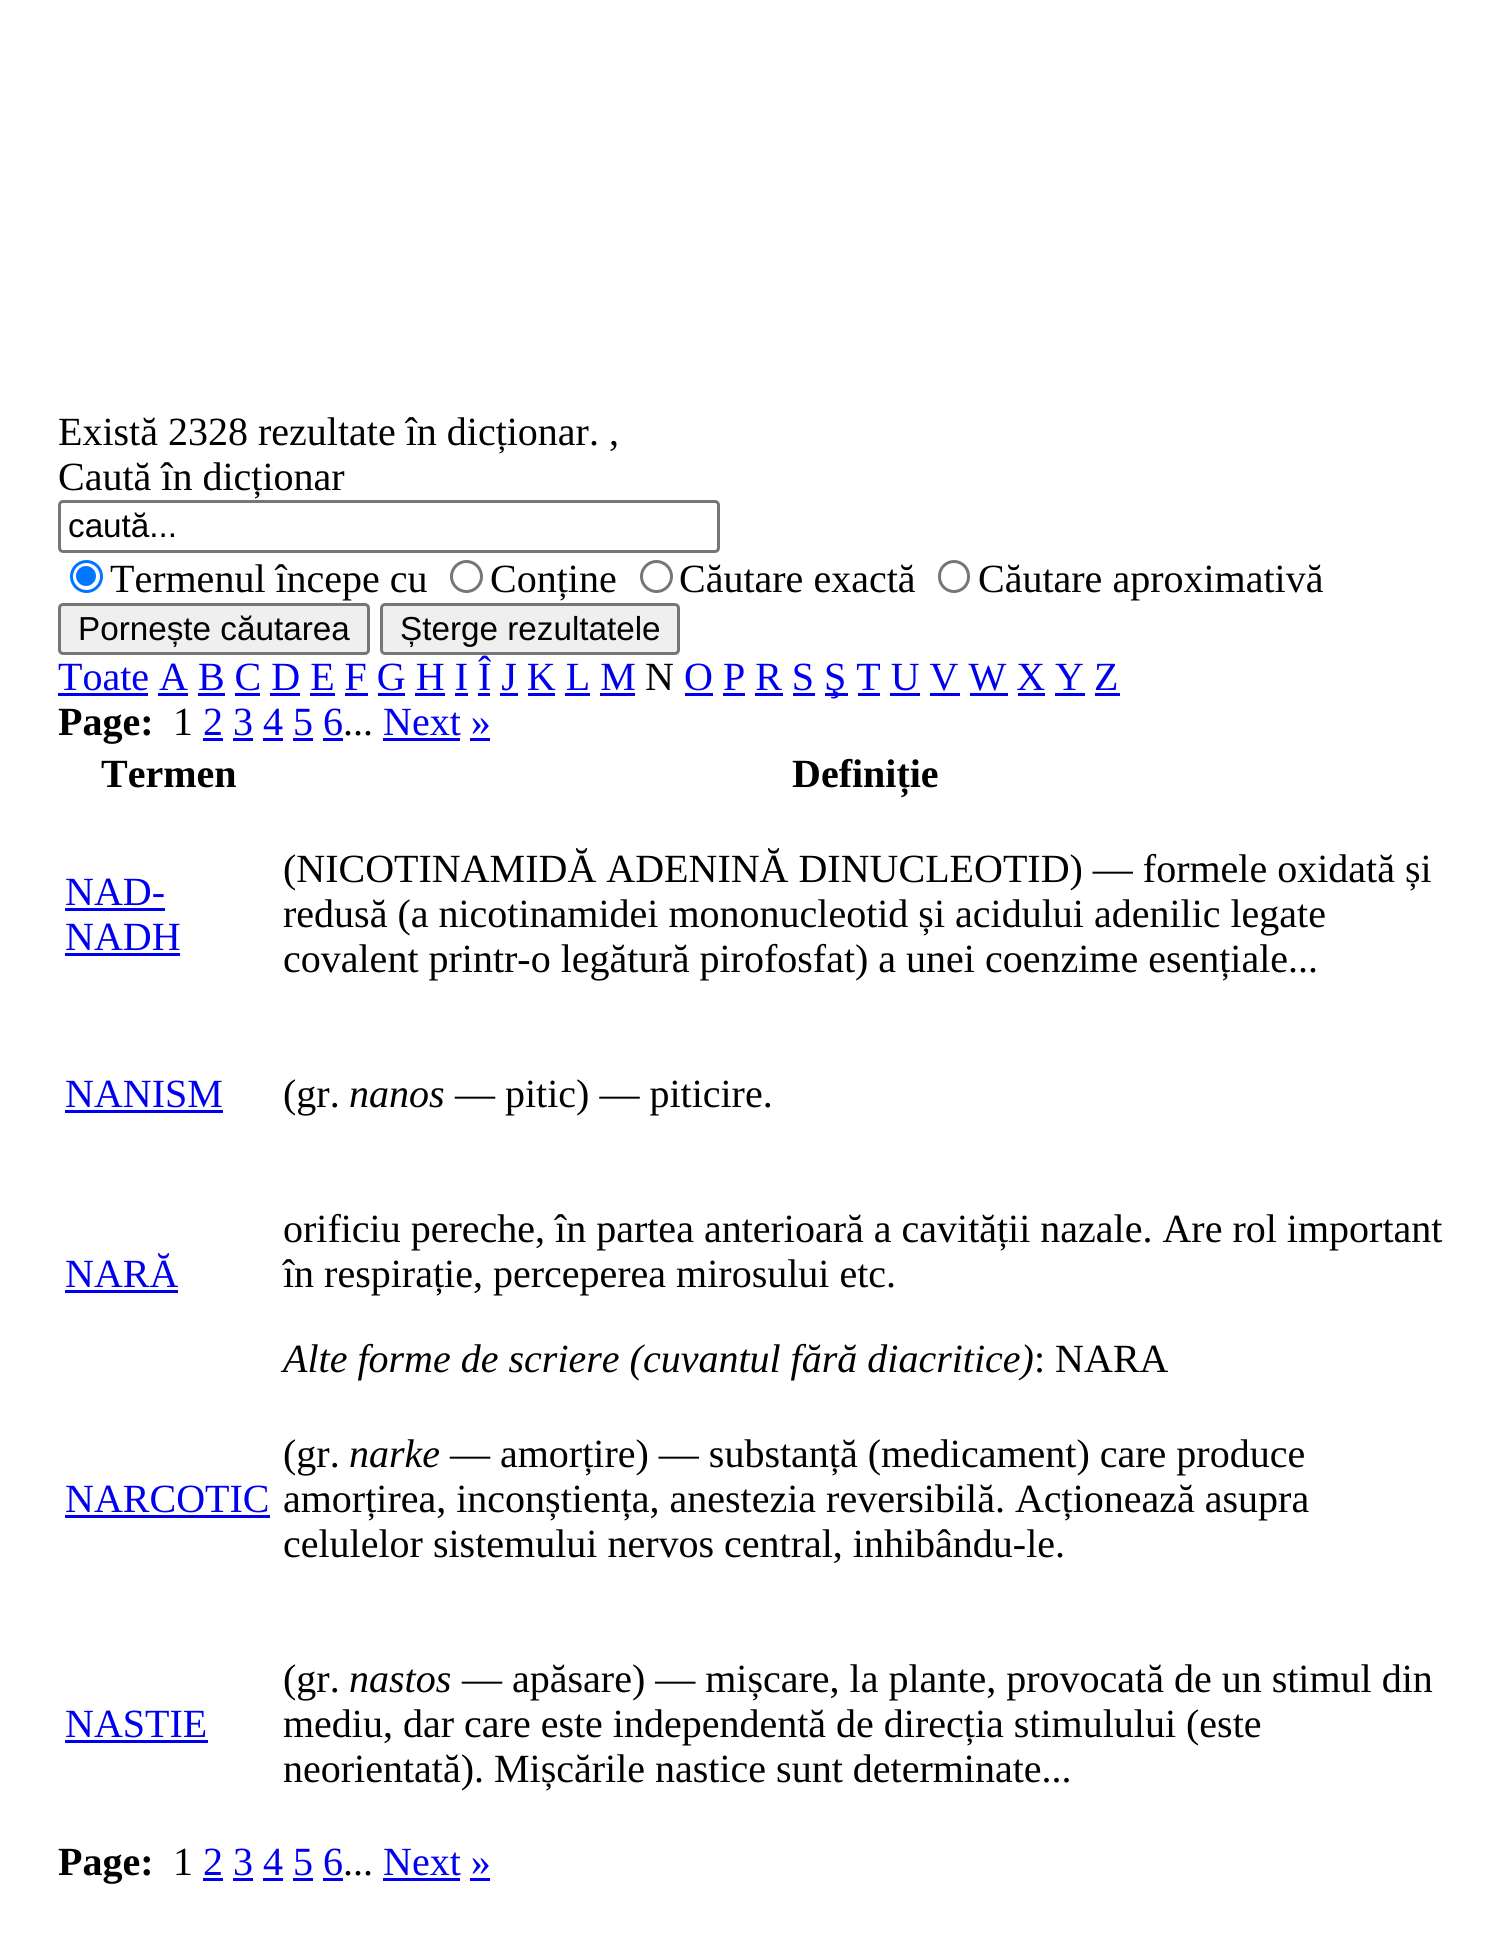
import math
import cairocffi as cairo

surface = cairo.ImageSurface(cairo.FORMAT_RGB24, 1486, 1958)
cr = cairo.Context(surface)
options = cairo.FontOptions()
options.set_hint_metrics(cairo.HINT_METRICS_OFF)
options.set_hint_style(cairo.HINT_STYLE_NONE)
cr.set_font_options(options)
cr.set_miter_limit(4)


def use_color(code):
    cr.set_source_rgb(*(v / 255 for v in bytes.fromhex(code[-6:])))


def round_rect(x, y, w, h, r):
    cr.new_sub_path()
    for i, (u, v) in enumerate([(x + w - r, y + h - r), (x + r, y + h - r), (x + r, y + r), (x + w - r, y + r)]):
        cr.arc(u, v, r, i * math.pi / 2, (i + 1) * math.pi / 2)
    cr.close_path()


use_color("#ffffff")
cr.paint()
cr.select_font_face("Liberation Serif")
cr.set_font_size(40)
use_color("#000000")
cr.move_to(58, 445)
cr.show_text("Există 2328 rezultate în dicționar. ,")
cr.move_to(58, 490)
cr.show_text("Caută în dicționar")
round_rect(59.5, 501.5, 659, 50, 3.5)
use_color("#767676")
cr.set_line_width(3)
cr.stroke()
cr.select_font_face("Liberation Sans")
cr.set_font_size(33.25)
use_color("#000000")
cr.move_to(68, 537)
cr.show_text("caută...")
cr.new_path()
cr.arc(86.5, 576.5, 15, 0, 2 * math.pi)
use_color("#0075ff")
cr.stroke()
cr.arc(86, 576, 10, 0, 2 * math.pi)
cr.fill()
cr.select_font_face("Liberation Serif")
cr.set_font_size(40)
use_color("#000000")
cr.move_to(110, 592)
cr.show_text("Termenul începe cu")
cr.new_path()
cr.arc(466.5, 576.5, 15, 0, 2 * math.pi)
use_color("#767676")
cr.stroke()
use_color("#000000")
cr.move_to(490, 592)
cr.show_text("Conține")
cr.new_path()
cr.arc(656.5, 576.5, 15, 0, 2 * math.pi)
use_color("#767676")
cr.stroke()
use_color("#000000")
cr.move_to(679, 592)
cr.show_text("Căutare exactă")
round_rect(939.5, 561.5, 29, 30, 14.5)
use_color("#767676")
cr.stroke()
use_color("#000000")
cr.move_to(978, 592)
cr.show_text("Căutare aproximativă")
use_color("#efefef")
round_rect(59.5, 604.5, 309, 49, 3.5)
cr.fill_preserve()
use_color("#767676")
cr.stroke()
cr.select_font_face("Liberation Sans")
cr.set_font_size(33.25)
use_color("#000000")
cr.move_to(78, 640)
cr.show_text("Pornește căutarea")
use_color("#efefef")
round_rect(381.5, 604.5, 297, 49, 3.5)
cr.fill_preserve()
use_color("#767676")
cr.stroke()
use_color("#000000")
cr.move_to(400, 640)
cr.show_text("Șterge rezultatele")
cr.select_font_face("Liberation Serif")
cr.set_font_size(40)
use_color("#0000ee")
cr.move_to(58, 690)
cr.show_text("Toate A B C D E F G H I Î J K L M")
cr.rectangle(58, 693, 90, 3)
cr.fill()
use_color("#000000")
cr.move_to(645, 690)
cr.show_text("N")
use_color("#0000ee")
cr.move_to(684, 690)
cr.show_text("O P R S")
cr.rectangle(685, 693, 28, 3)
cr.fill()
cr.rectangle(825, 693, 23, 3)
cr.fill()
cr.move_to(824, 690)
cr.show_text("Ş T U V W X Y Z")
cr.rectangle(158, 693, 30, 3)
cr.fill()
cr.rectangle(198, 693, 27, 3)
cr.fill()
cr.rectangle(235, 693, 25, 3)
cr.fill()
cr.rectangle(270, 693, 30, 3)
cr.fill()
cr.rectangle(310, 693, 25, 3)
cr.fill()
cr.rectangle(345, 693, 23, 3)
cr.fill()
cr.rectangle(378, 693, 27, 3)
cr.fill()
cr.rectangle(415, 693, 30, 3)
cr.fill()
cr.rectangle(455, 693, 13, 3)
cr.fill()
cr.rectangle(478, 693, 12, 3)
cr.fill()
cr.rectangle(500, 693, 18, 3)
cr.fill()
cr.rectangle(528, 693, 27, 3)
cr.fill()
cr.rectangle(565, 693, 25, 3)
cr.fill()
cr.rectangle(600, 693, 35, 3)
cr.fill()
cr.rectangle(723, 693, 22, 3)
cr.fill()
cr.rectangle(755, 693, 28, 3)
cr.fill()
cr.rectangle(793, 693, 22, 3)
cr.fill()
cr.rectangle(858, 693, 22, 3)
cr.fill()
cr.rectangle(890, 693, 30, 3)
cr.fill()
cr.rectangle(930, 693, 30, 3)
cr.fill()
cr.rectangle(970, 693, 38, 3)
cr.fill()
cr.rectangle(1018, 693, 27, 3)
cr.fill()
cr.rectangle(1055, 693, 30, 3)
cr.fill()
cr.rectangle(1095, 693, 25, 3)
cr.fill()
cr.select_font_face("Liberation Serif", cairo.FONT_SLANT_NORMAL, cairo.FONT_WEIGHT_BOLD)
use_color("#000000")
cr.move_to(58, 735)
cr.show_text("Page:")
cr.select_font_face("Liberation Serif")
cr.move_to(173, 735)
cr.show_text("1")
use_color("#0000ee")
cr.move_to(203, 735)
cr.show_text("2 3 4 5 6")
cr.rectangle(203, 738, 20, 3)
cr.fill()
use_color("#000000")
cr.move_to(343, 735)
cr.show_text("...")
use_color("#0000ee")
cr.move_to(383, 735)
cr.show_text("Next »")
cr.rectangle(383, 738, 77, 3)
cr.fill()
cr.rectangle(233, 738, 20, 3)
cr.fill()
cr.rectangle(263, 738, 20, 3)
cr.fill()
cr.rectangle(293, 738, 20, 3)
cr.fill()
cr.rectangle(323, 738, 20, 3)
cr.fill()
cr.rectangle(470, 738, 20, 3)
cr.fill()
cr.select_font_face("Liberation Serif", cairo.FONT_SLANT_NORMAL, cairo.FONT_WEIGHT_BOLD)
use_color("#000000")
cr.move_to(101, 787)
cr.show_text("Termen")
cr.move_to(792, 787)
cr.show_text("Definiție")
cr.select_font_face("Liberation Serif")
use_color("#0000ee")
cr.move_to(65, 905)
cr.show_text("NAD-")
cr.rectangle(65, 908, 100, 3)
cr.fill()
cr.move_to(65, 950)
cr.show_text("NADH")
cr.rectangle(65, 953, 115, 3)
cr.fill()
use_color("#000000")
cr.move_to(283, 882)
cr.show_text("(NICOTINAMIDĂ ADENINĂ DINUCLEOTID) — formele oxidată și")
cr.move_to(283, 927)
cr.show_text("redusă (a nicotinamidei mononucleotid și acidului adenilic legate")
cr.move_to(283, 972)
cr.show_text("covalent printr-o legătură pirofosfat) a unei coenzime esențiale...")
use_color("#0000ee")
cr.move_to(65, 1107)
cr.show_text("NANISM")
cr.rectangle(65, 1110, 158, 3)
cr.fill()
use_color("#000000")
cr.move_to(283, 1107)
cr.show_text("(gr.")
cr.select_font_face("Liberation Serif", cairo.FONT_SLANT_ITALIC)
cr.move_to(349, 1107)
cr.show_text("nanos")
cr.select_font_face("Liberation Serif")
cr.move_to(455, 1107)
cr.show_text("— pitic) — piticire.")
use_color("#0000ee")
cr.move_to(65, 1287)
cr.show_text("NARĂ")
cr.rectangle(65, 1290, 113, 3)
cr.fill()
use_color("#000000")
cr.move_to(283, 1242)
cr.show_text("orificiu pereche, în partea anterioară a cavității nazale. Are rol important")
cr.move_to(283, 1287)
cr.show_text("în respirație, perceperea mirosului etc.")
cr.select_font_face("Liberation Serif", cairo.FONT_SLANT_ITALIC)
cr.move_to(283, 1372)
cr.show_text("Alte forme de scriere (cuvantul fără diacritice)")
cr.select_font_face("Liberation Serif")
cr.move_to(1034, 1372)
cr.show_text(": NARA")
use_color("#0000ee")
cr.move_to(65, 1512)
cr.show_text("NARCOTIC")
cr.rectangle(65, 1515, 205, 3)
cr.fill()
use_color("#000000")
cr.move_to(283, 1467)
cr.show_text("(gr.")
cr.select_font_face("Liberation Serif", cairo.FONT_SLANT_ITALIC)
cr.move_to(349, 1467)
cr.show_text("narke")
cr.select_font_face("Liberation Serif")
cr.move_to(450, 1467)
cr.show_text("— amorțire) — substanță (medicament) care produce")
cr.move_to(283, 1512)
cr.show_text("amorțirea, inconștiența, anestezia reversibilă. Acționează asupra")
cr.move_to(283, 1557)
cr.show_text("celulelor sistemului nervos central, inhibându-le.")
use_color("#0000ee")
cr.move_to(65, 1737)
cr.show_text("NASTIE")
cr.rectangle(65, 1740, 143, 3)
cr.fill()
use_color("#000000")
cr.move_to(283, 1692)
cr.show_text("(gr.")
cr.select_font_face("Liberation Serif", cairo.FONT_SLANT_ITALIC)
cr.move_to(349, 1692)
cr.show_text("nastos")
cr.select_font_face("Liberation Serif")
cr.move_to(462, 1692)
cr.show_text("— apăsare) — mișcare, la plante, provocată de un stimul din")
cr.move_to(283, 1737)
cr.show_text("mediu, dar care este independentă de direcția stimulului (este")
cr.move_to(283, 1782)
cr.show_text("neorientată). Mișcările nastice sunt determinate...")
cr.select_font_face("Liberation Serif", cairo.FONT_SLANT_NORMAL, cairo.FONT_WEIGHT_BOLD)
cr.move_to(58, 1875)
cr.show_text("Page:")
cr.select_font_face("Liberation Serif")
cr.move_to(173, 1875)
cr.show_text("1")
use_color("#0000ee")
cr.move_to(203, 1875)
cr.show_text("2 3 4 5 6")
cr.rectangle(203, 1878, 20, 3)
cr.fill()
use_color("#000000")
cr.move_to(343, 1875)
cr.show_text("...")
use_color("#0000ee")
cr.move_to(383, 1875)
cr.show_text("Next »")
cr.rectangle(383, 1878, 77, 3)
cr.fill()
cr.rectangle(233, 1878, 20, 3)
cr.fill()
cr.rectangle(263, 1878, 20, 3)
cr.fill()
cr.rectangle(293, 1878, 20, 3)
cr.fill()
cr.rectangle(323, 1878, 20, 3)
cr.fill()
cr.rectangle(470, 1878, 20, 3)
cr.fill()
surface.write_to_png("result.png")
